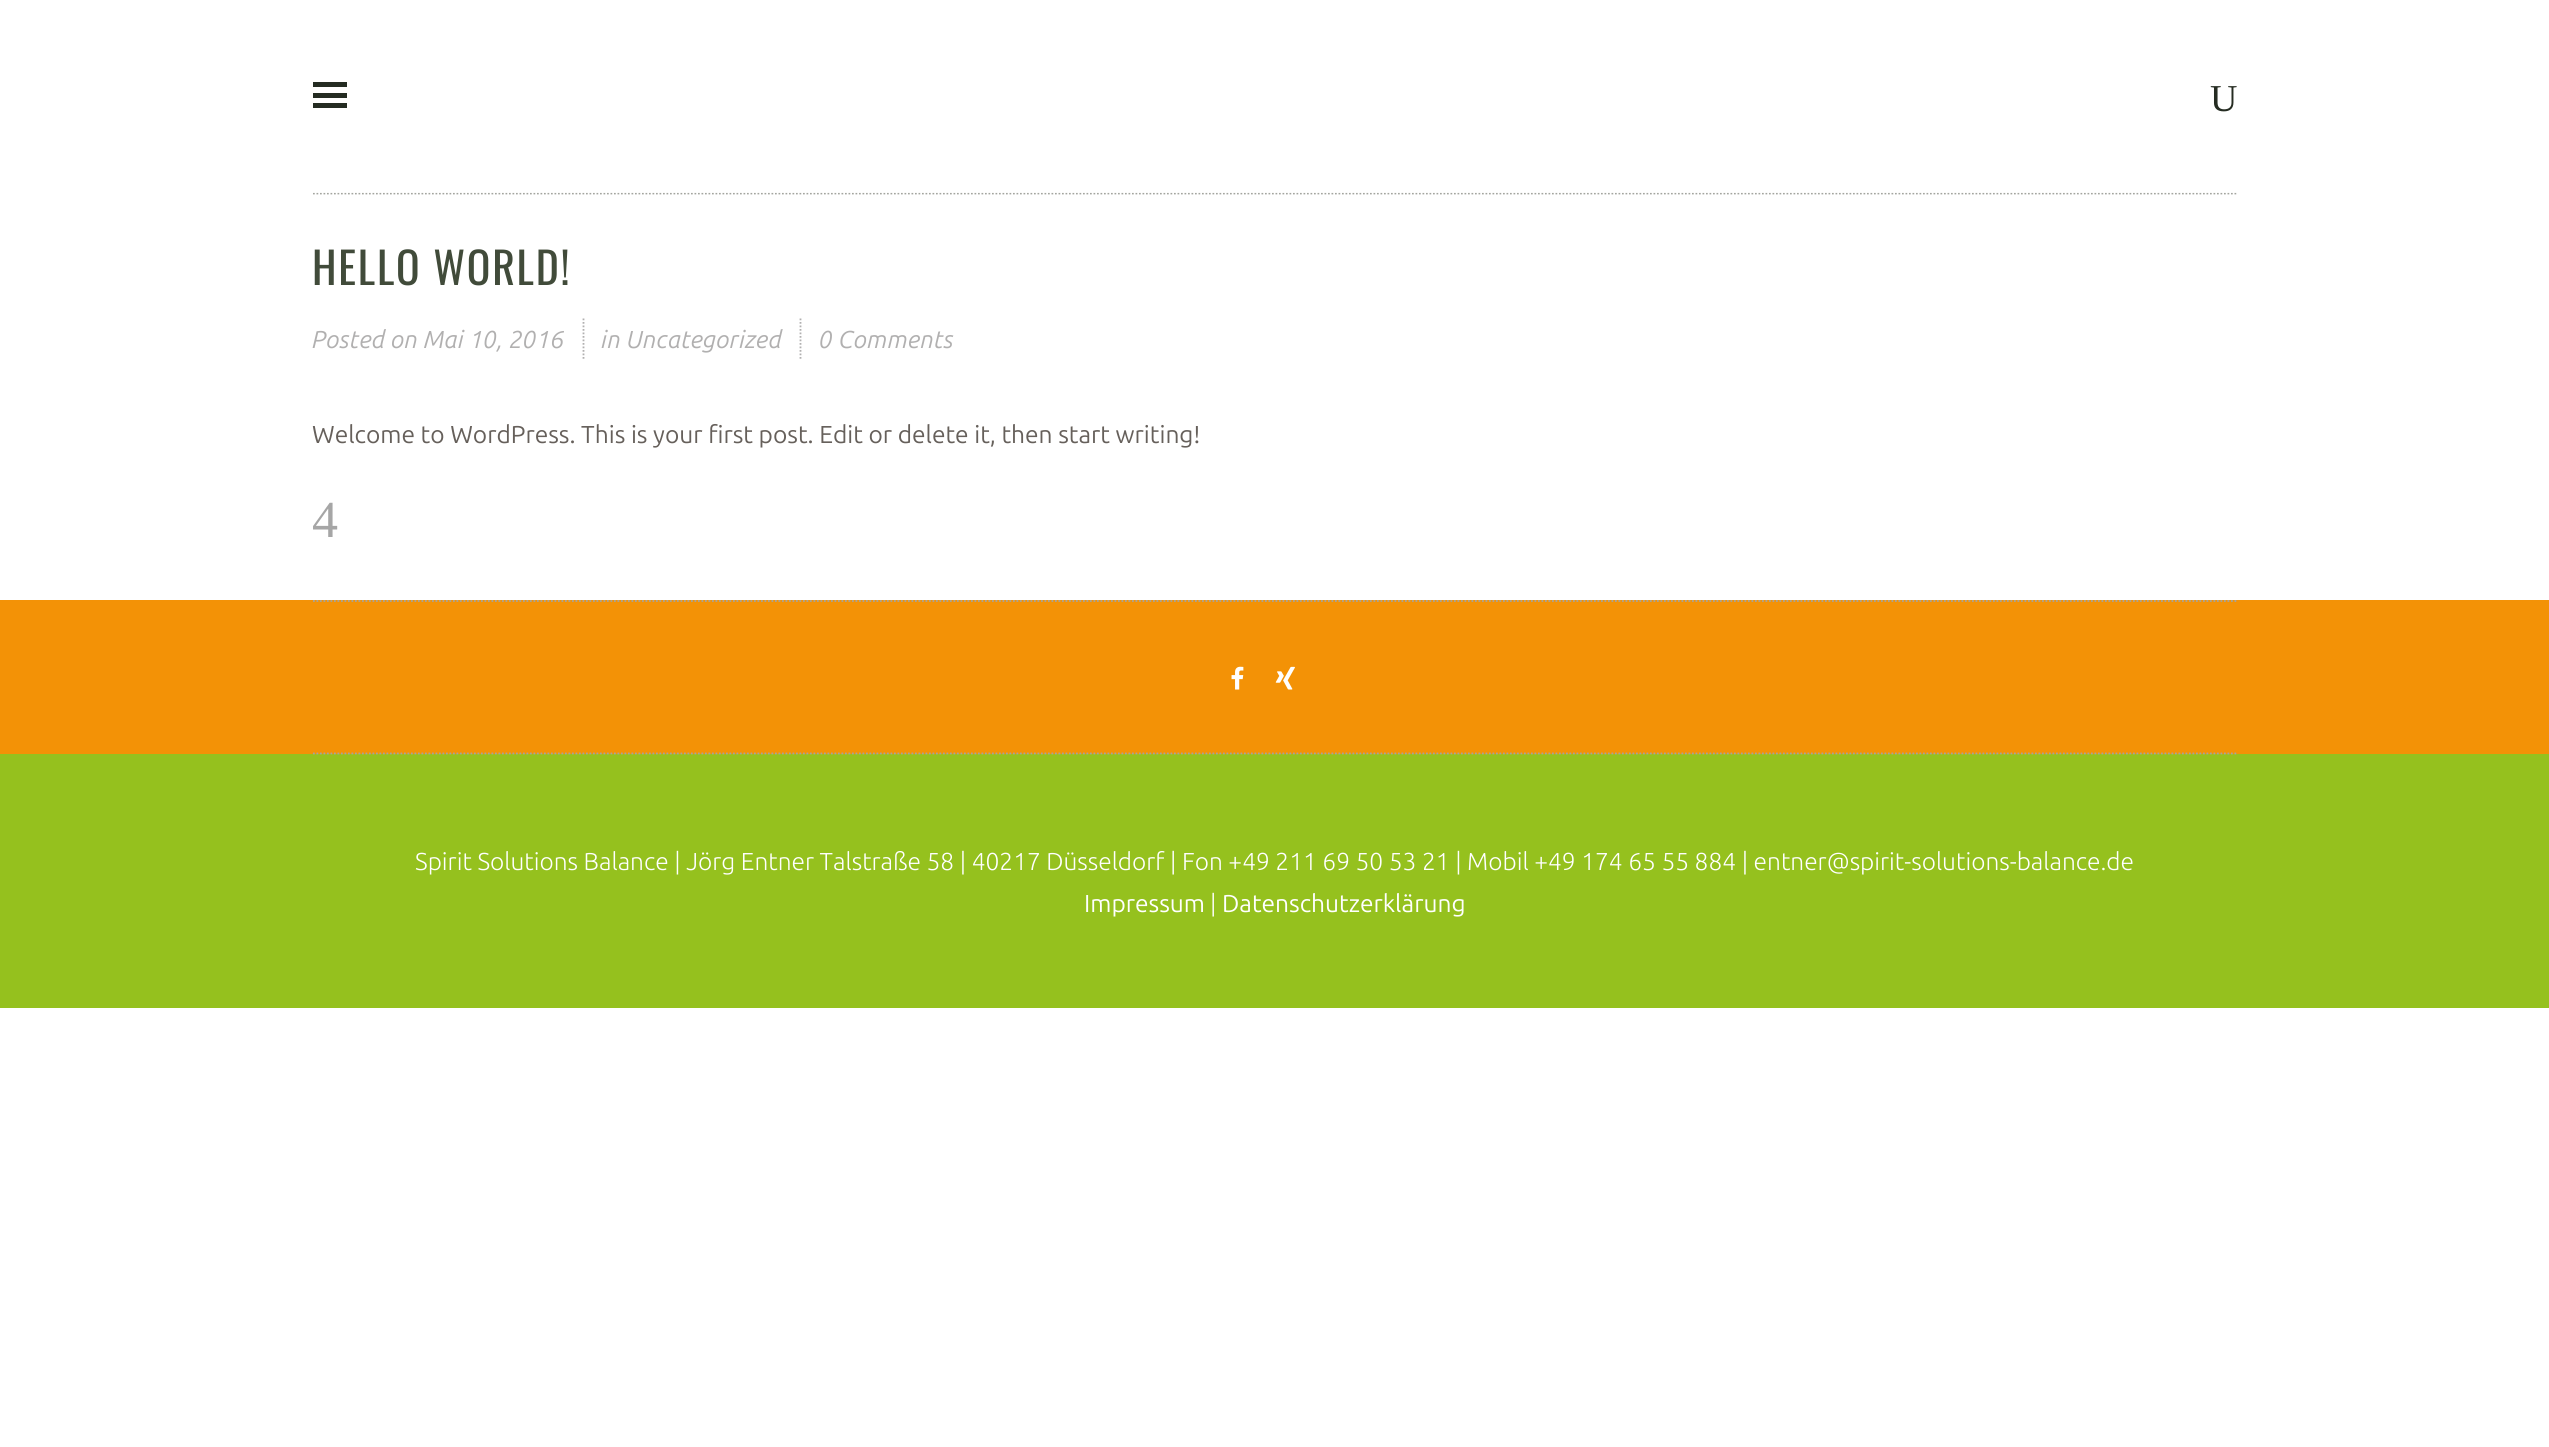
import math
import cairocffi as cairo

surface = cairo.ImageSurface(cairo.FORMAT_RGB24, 2549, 1447)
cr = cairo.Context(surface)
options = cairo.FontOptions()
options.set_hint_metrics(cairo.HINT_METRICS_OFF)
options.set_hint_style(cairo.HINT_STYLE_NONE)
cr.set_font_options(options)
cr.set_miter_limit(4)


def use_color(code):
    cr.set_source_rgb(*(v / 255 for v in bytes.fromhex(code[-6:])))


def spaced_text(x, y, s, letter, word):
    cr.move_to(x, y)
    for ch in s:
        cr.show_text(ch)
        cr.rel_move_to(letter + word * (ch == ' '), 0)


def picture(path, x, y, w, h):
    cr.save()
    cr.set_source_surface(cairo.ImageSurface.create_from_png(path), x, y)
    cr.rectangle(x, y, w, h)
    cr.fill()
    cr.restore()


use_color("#ffffff")
cr.paint()
cr.new_path()
cr.move_to(313, 193.5)
cr.line_to(2238, 193.5)
use_color("#a3a59f")
cr.set_line_width(1.8)
cr.set_dash([1.75, 1.75])
cr.stroke()
cr.set_source_rgba(1, 1, 1, 0.8)
cr.rectangle(313, 192, 1924, 1)
cr.fill()
use_color("#252c22")
cr.rectangle(313, 93, 34, 5)
cr.fill()
cr.rectangle(313, 82, 34, 5)
cr.fill()
cr.rectangle(313, 103, 34, 5)
cr.fill()
cr.select_font_face("Liberation Serif")
cr.set_font_size(38)
cr.move_to(2210, 111)
cr.show_text("U")
cr.select_font_face("Oswald")
cr.set_font_size(43.75)
use_color("#414b3a")
spaced_text(312, 285, "HELLO WORLD!", 1.75, 0)
cr.new_path()
cr.move_to(583.5, 318.5)
cr.line_to(583.5, 360.5)
use_color("#b1b0b0")
cr.stroke()
cr.select_font_face("Ubuntu", cairo.FONT_SLANT_ITALIC)
cr.set_font_size(24.5)
cr.move_to(312, 348)
cr.show_text("Posted on Mai 10, 2016")
cr.new_path()
cr.move_to(800.5, 318.5)
cr.line_to(800.5, 360.5)
cr.stroke()
cr.move_to(601, 348)
cr.show_text("in Uncategorized")
cr.move_to(819, 348)
cr.show_text("0 Comments")
cr.select_font_face("Ubuntu")
use_color("#66605b")
cr.move_to(312, 443)
cr.show_text("Welcome to WordPress. This is your first post. Edit or delete it, then start writing!")
cr.select_font_face("Liberation Serif")
cr.set_font_size(52)
use_color("#a6a6a6")
cr.move_to(312, 537)
cr.show_text("4")
use_color("#f39206")
cr.rectangle(0, 600, 2549, 154)
cr.fill()
cr.new_path()
cr.move_to(313, 601)
cr.line_to(2238, 601)
use_color("#a3a59f")
cr.stroke()
picture("img1.png", 1231, 666, 13, 24)
picture("img2.png", 1275, 666, 20, 24)
use_color("#95c11e")
cr.rectangle(0, 754, 2549, 254)
cr.fill()
cr.new_path()
cr.move_to(313, 753.5)
cr.line_to(2238, 753.5)
use_color("#a3a59f")
cr.stroke()
cr.select_font_face("Ubuntu Light")
cr.set_font_size(24.5)
use_color("#ffffff")
cr.move_to(415, 870)
cr.show_text("Spirit Solutions Balance | Jörg Entner Talstraße 58 | 40217 Düsseldorf | Fon +49 211 69 50 53 21 | Mobil +49 174 65 55 884 | entner@spirit-solutions-balance.de")
cr.select_font_face("Ubuntu")
cr.move_to(1084, 912)
cr.show_text("Impressum")
cr.select_font_face("Ubuntu Light")
cr.move_to(1210, 912)
cr.show_text("|")
cr.select_font_face("Ubuntu")
cr.move_to(1222, 912)
cr.show_text("Datenschutzerklärung")
surface.write_to_png("result.png")
